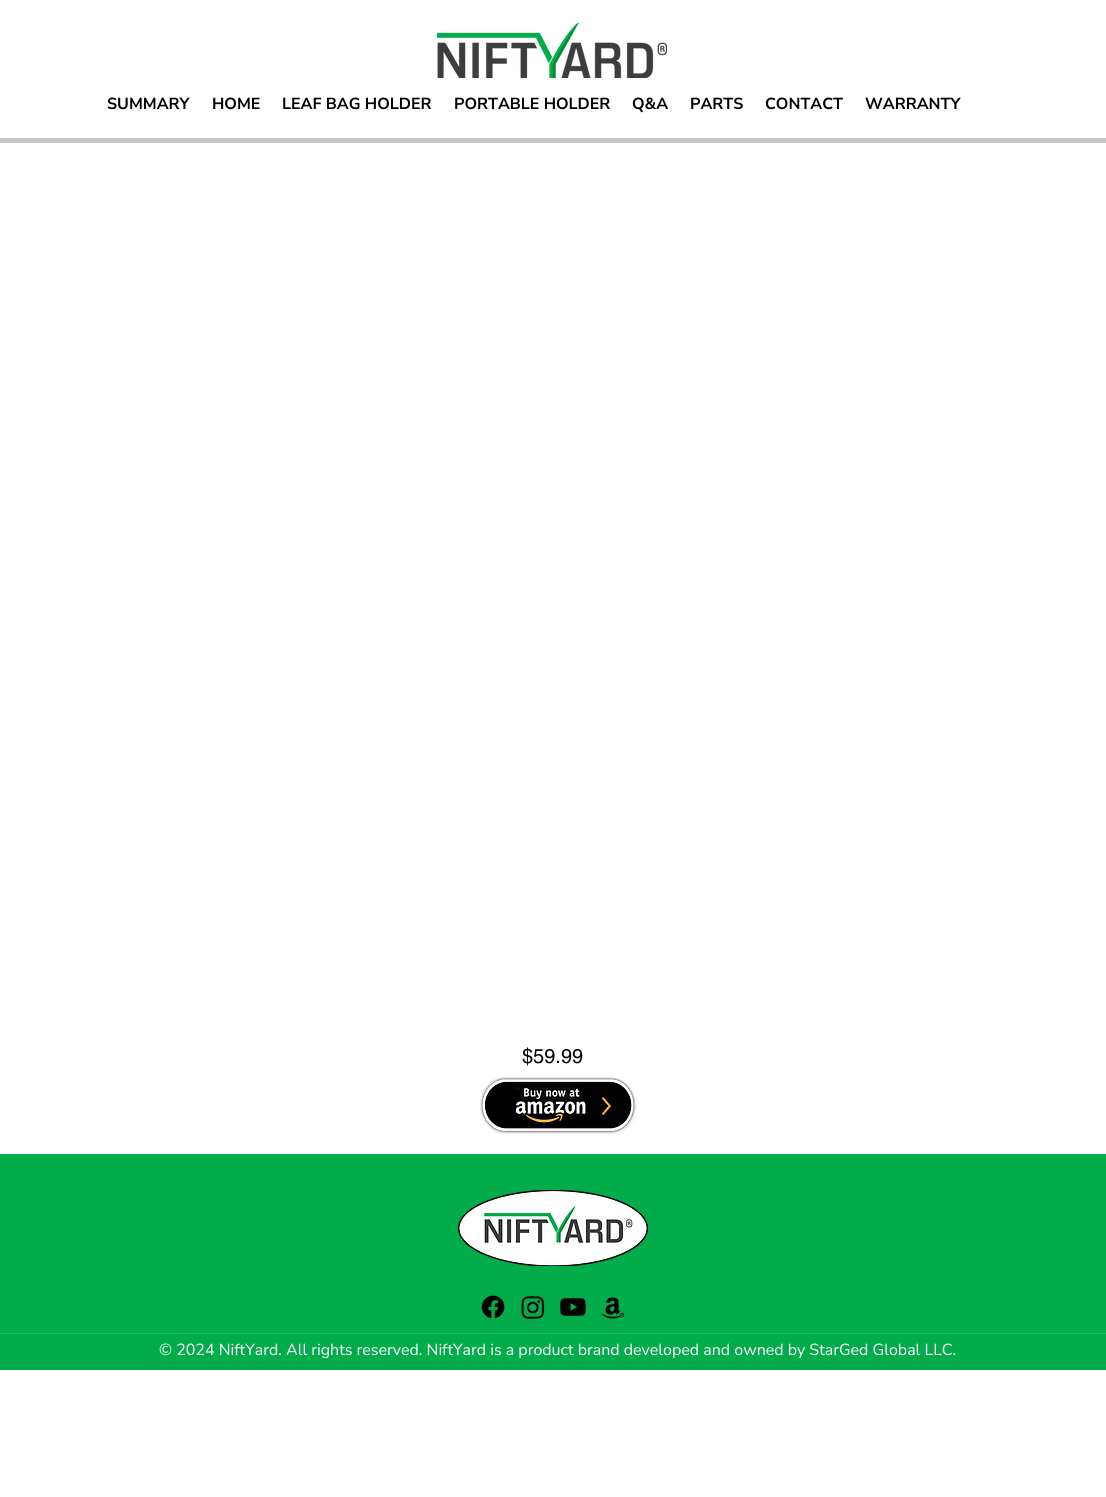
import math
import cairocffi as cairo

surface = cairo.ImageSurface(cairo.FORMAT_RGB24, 1106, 1497)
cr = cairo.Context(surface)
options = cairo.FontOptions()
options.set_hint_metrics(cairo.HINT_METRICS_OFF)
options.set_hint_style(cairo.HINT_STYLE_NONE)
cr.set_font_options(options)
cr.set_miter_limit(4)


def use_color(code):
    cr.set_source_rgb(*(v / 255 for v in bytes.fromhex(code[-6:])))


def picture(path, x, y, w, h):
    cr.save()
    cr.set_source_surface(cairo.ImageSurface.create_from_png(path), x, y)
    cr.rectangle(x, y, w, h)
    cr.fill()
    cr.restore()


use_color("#ffffff")
cr.paint()
picture("img1.png", 437, 23, 230, 55)
cr.select_font_face("Nunito Sans", cairo.FONT_SLANT_NORMAL, cairo.FONT_WEIGHT_BOLD)
cr.set_font_size(16)
use_color("#000000")
cr.move_to(107, 109)
cr.show_text("SUMMARY")
cr.move_to(212, 109)
cr.show_text("HOME")
cr.move_to(282, 109)
cr.show_text("LEAF BAG HOLDER")
cr.move_to(454, 109)
cr.show_text("PORTABLE HOLDER")
cr.move_to(632, 109)
cr.show_text("Q&A")
cr.move_to(690, 109)
cr.show_text("PARTS")
cr.move_to(765, 109)
cr.show_text("CONTACT")
cr.move_to(865, 109)
cr.show_text("WARRANTY")
use_color("#c7c7c7")
cr.rectangle(0, 138, 1106, 5)
cr.fill()
cr.select_font_face("helvetica")
cr.set_font_size(20)
use_color("#000000")
cr.move_to(522, 1063)
cr.show_text("$59.99")
picture("img2.png", 480, 1077, 156, 57)
use_color("#03ac4a")
cr.rectangle(0, 1154, 1106, 216)
cr.fill()
picture("img3.png", 458, 1190, 190, 76)
picture("img4.png", 481, 1295, 24, 24)
picture("img5.png", 521, 1296, 24, 23)
picture("img6.png", 560, 1297, 26, 20)
picture("img7.png", 601, 1297, 24, 22)
use_color("#0bc559")
cr.rectangle(0, 1333, 1106, 1)
cr.fill()
cr.select_font_face("Nunito Sans")
cr.set_font_size(16)
use_color("#ffffff")
cr.move_to(159, 1355)
cr.show_text("© 2024 NiftYard. All rights reserved. NiftYard is a product brand developed and owned by StarGed Global LLC.")
surface.write_to_png("result.png")
